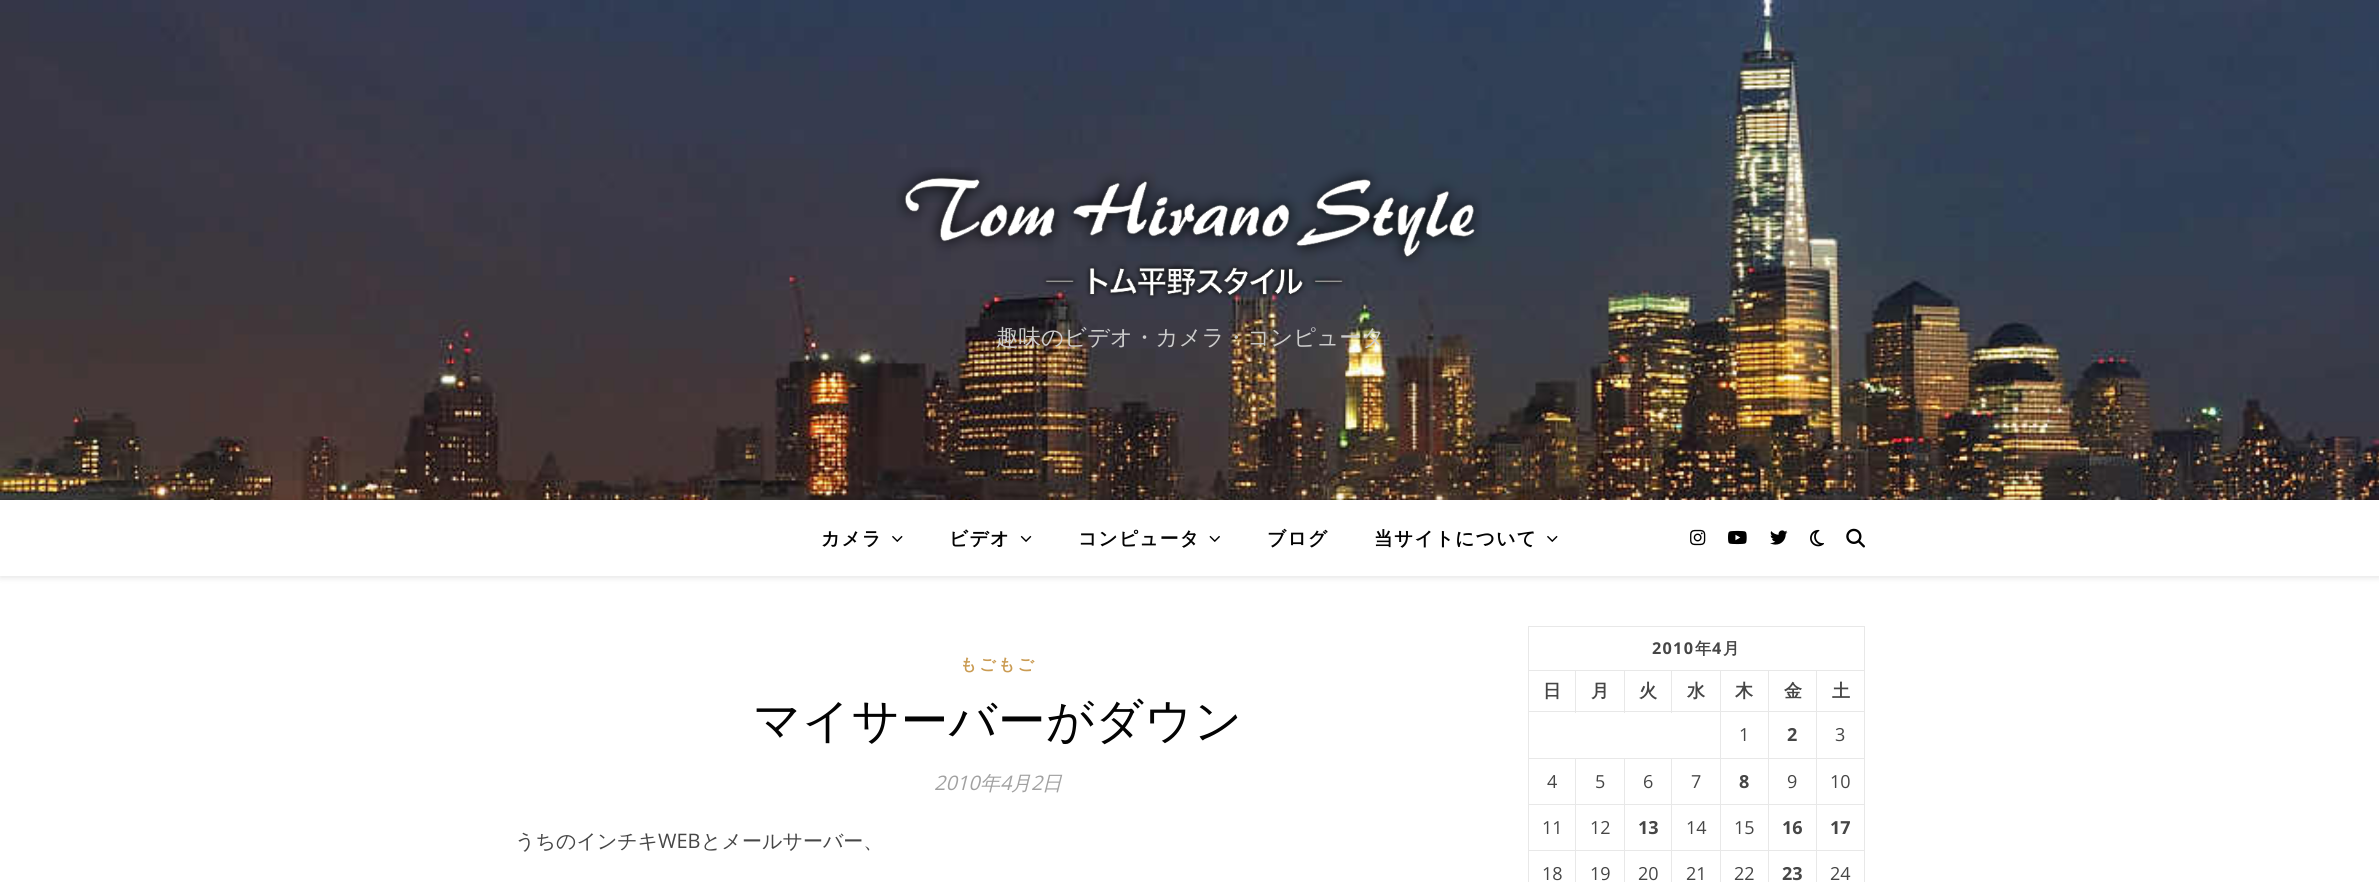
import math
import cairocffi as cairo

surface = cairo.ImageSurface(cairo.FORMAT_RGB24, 2379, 882)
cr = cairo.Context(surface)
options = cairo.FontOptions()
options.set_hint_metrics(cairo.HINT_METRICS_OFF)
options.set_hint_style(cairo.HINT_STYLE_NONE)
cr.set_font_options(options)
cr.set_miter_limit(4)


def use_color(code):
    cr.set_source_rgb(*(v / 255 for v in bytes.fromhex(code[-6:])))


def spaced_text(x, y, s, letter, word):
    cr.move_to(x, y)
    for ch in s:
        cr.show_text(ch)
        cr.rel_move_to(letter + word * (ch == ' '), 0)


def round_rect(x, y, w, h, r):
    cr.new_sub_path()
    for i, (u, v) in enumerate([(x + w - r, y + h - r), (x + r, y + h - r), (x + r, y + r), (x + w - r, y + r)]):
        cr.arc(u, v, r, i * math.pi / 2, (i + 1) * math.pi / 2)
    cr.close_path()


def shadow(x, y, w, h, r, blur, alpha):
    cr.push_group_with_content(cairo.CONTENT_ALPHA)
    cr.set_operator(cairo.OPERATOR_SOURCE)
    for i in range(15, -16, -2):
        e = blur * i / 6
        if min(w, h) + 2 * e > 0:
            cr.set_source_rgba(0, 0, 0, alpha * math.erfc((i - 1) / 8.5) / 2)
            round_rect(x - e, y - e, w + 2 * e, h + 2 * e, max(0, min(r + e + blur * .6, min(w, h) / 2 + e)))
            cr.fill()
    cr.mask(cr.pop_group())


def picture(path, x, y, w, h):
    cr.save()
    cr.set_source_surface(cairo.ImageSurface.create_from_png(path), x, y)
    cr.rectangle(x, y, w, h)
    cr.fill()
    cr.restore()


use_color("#ffffff")
cr.paint()
picture("img1.png", 0, 0, 2379, 500)
picture("img2.png", 896, 167, 586, 132)
cr.select_font_face("WenQuanYi Zen Hei Medium")
cr.set_font_size(22.5)
use_color("#cccccc")
cr.move_to(996, 345)
cr.show_text("趣味のビデオ・カメラ・コンピュータ")
cr.save()
cr.set_fill_rule(cairo.FILL_RULE_EVEN_ODD)
cr.new_path()
cr.move_to(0, 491)
cr.line_to(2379, 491)
cr.line_to(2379, 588)
cr.line_to(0, 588)
cr.close_path()
cr.move_to(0, 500)
cr.line_to(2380, 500)
cr.line_to(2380, 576)
cr.line_to(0, 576)
cr.close_path()
cr.clip()
use_color("#000000")
shadow(0, 501, 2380, 77, 0, 3, 0.1)
cr.restore()
cr.select_font_face("WenQuanYi Zen Hei", cairo.FONT_SLANT_NORMAL, cairo.FONT_WEIGHT_BOLD)
cr.set_font_size(18.75)
use_color("#030303")
spaced_text(821, 545, "カメラ", 1.25, 0)
picture("img3.png", 892, 535, 11, 7)
spaced_text(949, 545, "ビデオ", 1.25, 0)
picture("img4.png", 1020, 535, 12, 7)
spaced_text(1078, 545, "コンピュータ", 1.25, 0)
picture("img5.png", 1209, 535, 11, 7)
spaced_text(1267, 545, "ブログ", 1.25, 0)
spaced_text(1374, 545, "当サイトについて", 1.25, 0)
picture("img3.png", 1547, 535, 11, 7)
picture("img6.png", 1690, 529, 16, 17)
picture("img7.png", 1728, 530, 19, 15)
picture("img8.png", 1770, 530, 18, 15)
picture("img9.png", 1810, 529, 14, 18)
picture("img10.png", 1846, 528, 19, 20)
cr.set_font_size(16.25)
use_color("#ca9b52")
spaced_text(960, 670, "もごもご", 2.5, 0)
cr.select_font_face("WenQuanYi Zen Hei Medium")
cr.set_font_size(47.5)
use_color("#030303")
spaced_text(753, 737, "マイサーバーがダウン", 0.6, 0)
cr.select_font_face("Open Sans", cairo.FONT_SLANT_ITALIC)
cr.set_font_size(20)
use_color("#a1a1a1")
cr.move_to(934, 790)
cr.show_text("2010")
cr.select_font_face("WenQuanYi Zen Hei Medium", cairo.FONT_SLANT_ITALIC)
cr.move_to(980, 790)
cr.show_text("年")
cr.select_font_face("Open Sans", cairo.FONT_SLANT_ITALIC)
cr.move_to(1000, 790)
cr.show_text("4")
cr.select_font_face("WenQuanYi Zen Hei Medium", cairo.FONT_SLANT_ITALIC)
cr.move_to(1011, 790)
cr.show_text("月")
cr.select_font_face("Open Sans", cairo.FONT_SLANT_ITALIC)
cr.move_to(1031, 790)
cr.show_text("2")
cr.select_font_face("WenQuanYi Zen Hei Medium", cairo.FONT_SLANT_ITALIC)
cr.move_to(1042, 790)
cr.show_text("日")
cr.select_font_face("WenQuanYi Zen Hei Medium")
use_color("#464646")
cr.move_to(515, 848)
cr.show_text("うちのインチキ")
cr.select_font_face("Open Sans")
cr.move_to(658, 848)
cr.show_text("WEB")
cr.select_font_face("WenQuanYi Zen Hei Medium")
cr.move_to(701, 848)
cr.show_text("とメールサーバー、")
use_color("#e8e8e8")
cr.rectangle(1528, 626, 337, 1)
cr.fill()
cr.rectangle(1864, 626, 1, 256)
cr.fill()
cr.rectangle(1528, 626, 1, 256)
cr.fill()
cr.select_font_face("Open Sans", cairo.FONT_SLANT_NORMAL, cairo.FONT_WEIGHT_BOLD)
cr.set_font_size(16.25)
use_color("#464646")
spaced_text(1652, 654, "2010", 1.25, 0)
cr.select_font_face("WenQuanYi Zen Hei", cairo.FONT_SLANT_NORMAL, cairo.FONT_WEIGHT_BOLD)
spaced_text(1695, 654, "年", 1.25, 0)
cr.select_font_face("Open Sans", cairo.FONT_SLANT_NORMAL, cairo.FONT_WEIGHT_BOLD)
spaced_text(1712, 654, "4", 1.25, 0)
cr.select_font_face("WenQuanYi Zen Hei", cairo.FONT_SLANT_NORMAL, cairo.FONT_WEIGHT_BOLD)
spaced_text(1723, 654, "月", 1.25, 0)
use_color("#e8e8e8")
cr.rectangle(1528, 670, 337, 1)
cr.fill()
cr.set_font_size(18)
use_color("#464646")
cr.move_to(1543, 697)
cr.show_text("日")
use_color("#e8e8e8")
cr.rectangle(1528, 711, 337, 1)
cr.fill()
cr.rectangle(1575, 670, 1, 43)
cr.fill()
use_color("#464646")
cr.move_to(1591, 697)
cr.show_text("月")
use_color("#e8e8e8")
cr.rectangle(1624, 670, 1, 43)
cr.fill()
use_color("#464646")
cr.move_to(1639, 697)
cr.show_text("火")
use_color("#e8e8e8")
cr.rectangle(1671, 670, 1, 43)
cr.fill()
use_color("#464646")
cr.move_to(1687, 697)
cr.show_text("水")
cr.move_to(1735, 697)
cr.show_text("木")
cr.move_to(1784, 697)
cr.show_text("金")
cr.move_to(1832, 697)
cr.show_text("土")
cr.select_font_face("Open Sans")
cr.move_to(1739, 741)
cr.show_text("1")
cr.select_font_face("Open Sans", cairo.FONT_SLANT_NORMAL, cairo.FONT_WEIGHT_BOLD)
cr.move_to(1787, 741)
cr.show_text("2")
cr.select_font_face("Open Sans")
cr.move_to(1835, 741)
cr.show_text("3")
use_color("#e8e8e8")
cr.rectangle(1528, 758, 337, 1)
cr.fill()
use_color("#464646")
cr.move_to(1547, 788)
cr.show_text("4")
cr.move_to(1595, 788)
cr.show_text("5")
cr.move_to(1643, 788)
cr.show_text("6")
cr.move_to(1691, 788)
cr.show_text("7")
cr.select_font_face("Open Sans", cairo.FONT_SLANT_NORMAL, cairo.FONT_WEIGHT_BOLD)
cr.move_to(1739, 788)
cr.show_text("8")
cr.select_font_face("Open Sans")
cr.move_to(1787, 788)
cr.show_text("9")
cr.move_to(1830, 788)
cr.show_text("10")
use_color("#e8e8e8")
cr.rectangle(1528, 804, 337, 1)
cr.fill()
use_color("#464646")
cr.move_to(1542, 834)
cr.show_text("11")
cr.move_to(1590, 834)
cr.show_text("12")
cr.select_font_face("Open Sans", cairo.FONT_SLANT_NORMAL, cairo.FONT_WEIGHT_BOLD)
cr.move_to(1638, 834)
cr.show_text("13")
cr.select_font_face("Open Sans")
cr.move_to(1686, 834)
cr.show_text("14")
cr.move_to(1734, 834)
cr.show_text("15")
cr.select_font_face("Open Sans", cairo.FONT_SLANT_NORMAL, cairo.FONT_WEIGHT_BOLD)
cr.move_to(1782, 834)
cr.show_text("16")
cr.move_to(1830, 834)
cr.show_text("17")
use_color("#e8e8e8")
cr.rectangle(1528, 850, 337, 1)
cr.fill()
cr.select_font_face("Open Sans")
use_color("#464646")
cr.move_to(1542, 880)
cr.show_text("18")
use_color("#e8e8e8")
cr.rectangle(1575, 758, 1, 124)
cr.fill()
use_color("#464646")
cr.move_to(1590, 880)
cr.show_text("19")
use_color("#e8e8e8")
cr.rectangle(1624, 758, 1, 124)
cr.fill()
use_color("#464646")
cr.move_to(1638, 880)
cr.show_text("20")
use_color("#e8e8e8")
cr.rectangle(1671, 758, 1, 124)
cr.fill()
use_color("#464646")
cr.move_to(1686, 880)
cr.show_text("21")
use_color("#e8e8e8")
cr.rectangle(1720, 670, 1, 212)
cr.fill()
use_color("#464646")
cr.move_to(1734, 880)
cr.show_text("22")
use_color("#e8e8e8")
cr.rectangle(1768, 670, 1, 212)
cr.fill()
cr.select_font_face("Open Sans", cairo.FONT_SLANT_NORMAL, cairo.FONT_WEIGHT_BOLD)
use_color("#464646")
cr.move_to(1782, 880)
cr.show_text("23")
use_color("#e8e8e8")
cr.rectangle(1816, 670, 1, 212)
cr.fill()
cr.select_font_face("Open Sans")
use_color("#464646")
cr.move_to(1830, 880)
cr.show_text("24")
surface.write_to_png("result.png")
